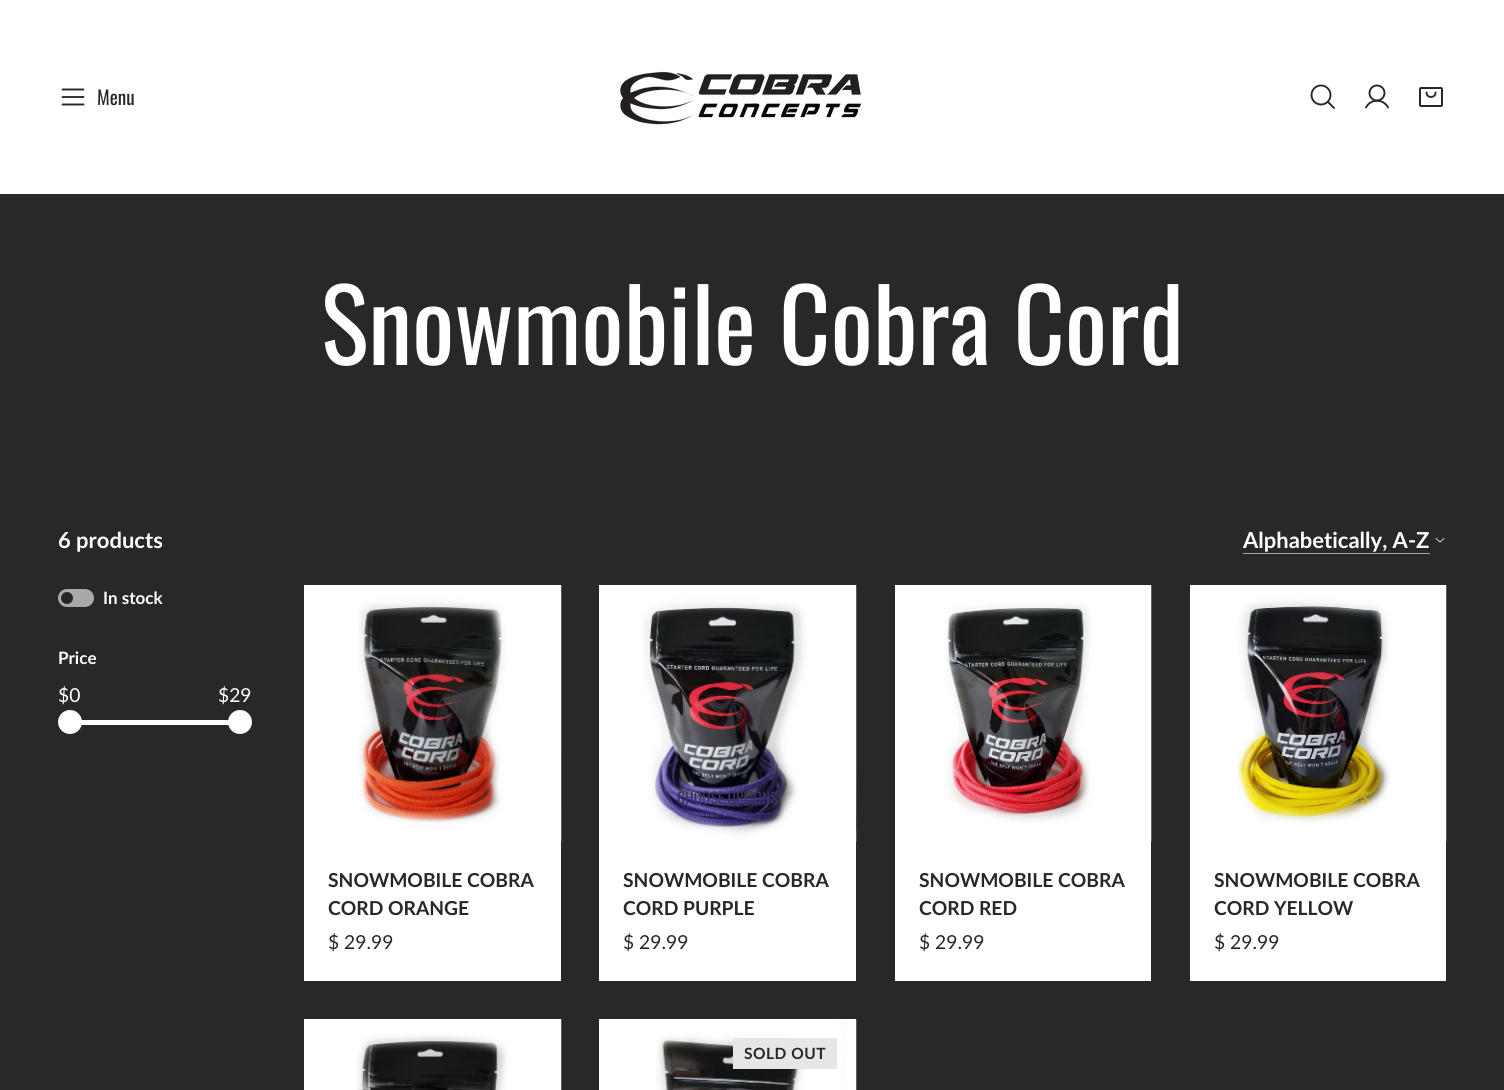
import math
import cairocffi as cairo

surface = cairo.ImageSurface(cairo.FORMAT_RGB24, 1504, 1090)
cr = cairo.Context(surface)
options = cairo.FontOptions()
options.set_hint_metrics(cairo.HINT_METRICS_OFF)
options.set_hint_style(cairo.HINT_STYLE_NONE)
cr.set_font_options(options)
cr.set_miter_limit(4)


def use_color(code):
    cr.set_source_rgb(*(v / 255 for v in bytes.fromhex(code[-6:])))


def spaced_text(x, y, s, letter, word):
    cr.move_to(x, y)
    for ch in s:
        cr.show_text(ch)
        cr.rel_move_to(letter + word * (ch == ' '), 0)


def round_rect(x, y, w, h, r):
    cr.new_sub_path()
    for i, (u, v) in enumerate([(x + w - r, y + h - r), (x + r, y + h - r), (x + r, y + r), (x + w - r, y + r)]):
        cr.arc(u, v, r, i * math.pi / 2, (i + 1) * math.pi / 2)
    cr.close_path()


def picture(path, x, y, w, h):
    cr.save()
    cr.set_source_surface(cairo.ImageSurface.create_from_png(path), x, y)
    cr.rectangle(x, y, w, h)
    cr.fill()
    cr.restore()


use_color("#ffffff")
cr.paint()
cr.new_path()
cr.move_to(62.5, 97)
cr.line_to(83.5, 97)
cr.move_to(62.5, 89.5)
cr.line_to(83.5, 89.5)
cr.move_to(62.5, 104.5)
cr.line_to(83.5, 104.5)
use_color("#282828")
cr.set_line_width(1.9)
cr.set_line_cap(cairo.LINE_CAP_ROUND)
cr.set_line_join(cairo.LINE_JOIN_ROUND)
cr.stroke()
cr.select_font_face("Oswald")
cr.set_font_size(19.25)
cr.move_to(97, 105)
cr.show_text("Menu")
picture("img1.png", 620, 71, 242, 54)
cr.arc(1321, 95, 9.5, 0, 2 * math.pi)
cr.set_line_cap(cairo.LINE_CAP_BUTT)
cr.set_line_join(cairo.LINE_JOIN_MITER)
cr.stroke()
cr.new_path()
cr.move_to(1328, 102)
cr.line_to(1334, 108)
cr.set_line_cap(cairo.LINE_CAP_ROUND)
cr.set_line_join(cairo.LINE_JOIN_ROUND)
cr.stroke()
cr.arc(1377, 93, 7.5, 0, 2 * math.pi)
cr.set_line_cap(cairo.LINE_CAP_BUTT)
cr.set_line_join(cairo.LINE_JOIN_MITER)
cr.stroke()
cr.new_path()
cr.move_to(1366, 107.5)
cr.curve_to(1370.5, 98.5, 1383.5, 98.5, 1388, 107.5)
cr.set_line_cap(cairo.LINE_CAP_ROUND)
cr.set_line_join(cairo.LINE_JOIN_ROUND)
cr.stroke()
round_rect(1420, 88, 22, 18, 1)
cr.set_line_width(2)
cr.set_line_cap(cairo.LINE_CAP_BUTT)
cr.set_line_join(cairo.LINE_JOIN_MITER)
cr.stroke()
cr.new_path()
cr.move_to(1435.5, 92.5)
cr.curve_to(1435.5, 98.5, 1426.5, 98.5, 1426.5, 92.5)
cr.set_line_width(1.9)
cr.set_line_cap(cairo.LINE_CAP_ROUND)
cr.set_line_join(cairo.LINE_JOIN_ROUND)
cr.stroke()
cr.rectangle(0, 194, 1504, 896)
cr.fill()
cr.set_font_size(99.9)
use_color("#ffffff")
cr.move_to(321, 365)
cr.show_text("Snowmobile Cobra Cord")
cr.select_font_face("Lato", cairo.FONT_SLANT_NORMAL, cairo.FONT_WEIGHT_BOLD)
cr.set_font_size(22)
cr.move_to(58, 548)
cr.show_text("6 products")
cr.move_to(1243, 548)
cr.show_text("Alphabetically, A-Z")
use_color("#a9a9a9")
cr.rectangle(1243, 553, 187, 1)
cr.fill()
cr.new_path()
cr.move_to(1444, 538.5)
cr.line_to(1440, 542)
cr.line_to(1436, 538.5)
use_color("#ffffff")
cr.set_line_width(0.8)
cr.stroke()
use_color("#a9a9a9")
round_rect(58, 589, 36, 18, 9)
cr.fill()
use_color("#282828")
cr.arc(67, 598, 6, 0, 2 * math.pi)
cr.fill()
cr.set_font_size(17)
use_color("#ffffff")
cr.move_to(103, 604)
cr.show_text("In stock")
cr.move_to(58, 664)
cr.show_text("Price")
cr.select_font_face("Lato")
cr.set_font_size(19.25)
cr.move_to(58, 702)
cr.show_text("$0")
cr.move_to(218, 702)
cr.show_text("$29")
cr.rectangle(81, 720, 148, 5)
cr.fill()
cr.arc(70, 722, 12, 0, 2 * math.pi)
cr.fill()
cr.arc(240, 722, 12, 0, 2 * math.pi)
cr.fill()
cr.rectangle(304, 585, 257, 396)
cr.fill()
picture("img2.png", 358, 585, 204, 257)
cr.select_font_face("Lato", cairo.FONT_SLANT_NORMAL, cairo.FONT_WEIGHT_BOLD)
use_color("#282828")
cr.move_to(328, 887)
cr.show_text("SNOWMOBILE COBRA")
cr.move_to(328, 915)
cr.show_text("CORD ORANGE")
cr.select_font_face("Lato")
cr.move_to(328, 949)
cr.show_text("$ 29.99")
use_color("#ffffff")
cr.rectangle(599, 585, 257, 396)
cr.fill()
picture("img3.png", 642, 585, 215, 257)
cr.select_font_face("Oswald")
cr.set_font_size(15.5)
use_color("#3a3262")
cr.move_to(677, 804)
cr.show_text("CHOOSE OPTIONS")
cr.select_font_face("Lato", cairo.FONT_SLANT_NORMAL, cairo.FONT_WEIGHT_BOLD)
cr.set_font_size(19.25)
use_color("#282828")
cr.move_to(623, 887)
cr.show_text("SNOWMOBILE COBRA")
cr.move_to(623, 915)
cr.show_text("CORD PURPLE")
cr.select_font_face("Lato")
cr.move_to(623, 949)
cr.show_text("$ 29.99")
use_color("#ffffff")
cr.rectangle(895, 585, 256, 396)
cr.fill()
picture("img4.png", 945, 585, 207, 257)
cr.select_font_face("Lato", cairo.FONT_SLANT_NORMAL, cairo.FONT_WEIGHT_BOLD)
use_color("#282828")
cr.move_to(919, 887)
cr.show_text("SNOWMOBILE COBRA")
cr.move_to(919, 915)
cr.show_text("CORD RED")
cr.select_font_face("Lato")
cr.move_to(919, 949)
cr.show_text("$ 29.99")
use_color("#ffffff")
cr.rectangle(1190, 585, 256, 396)
cr.fill()
picture("img5.png", 1237, 585, 210, 257)
cr.select_font_face("Oswald")
cr.set_font_size(15.5)
use_color("#d2b90f")
cr.move_to(1361, 804)
cr.show_text("S")
cr.select_font_face("Lato", cairo.FONT_SLANT_NORMAL, cairo.FONT_WEIGHT_BOLD)
cr.set_font_size(19.25)
use_color("#282828")
cr.move_to(1214, 887)
cr.show_text("SNOWMOBILE COBRA")
cr.move_to(1214, 915)
cr.show_text("CORD YELLOW")
cr.select_font_face("Lato")
cr.move_to(1214, 949)
cr.show_text("$ 29.99")
use_color("#ffffff")
cr.rectangle(304, 1019, 257, 71)
cr.fill()
picture("img6.png", 356, 1019, 206, 71)
cr.rectangle(599, 1019, 257, 71)
cr.fill()
picture("img7.png", 655, 1019, 202, 71)
use_color("#e6e6e6")
cr.rectangle(733, 1038, 104, 31)
cr.fill()
cr.select_font_face("Lato", cairo.FONT_SLANT_NORMAL, cairo.FONT_WEIGHT_BOLD)
cr.set_font_size(15.5)
use_color("#282828")
spaced_text(744, 1059, "SOLD OUT", 0.5, 0)
surface.write_to_png("result.png")
